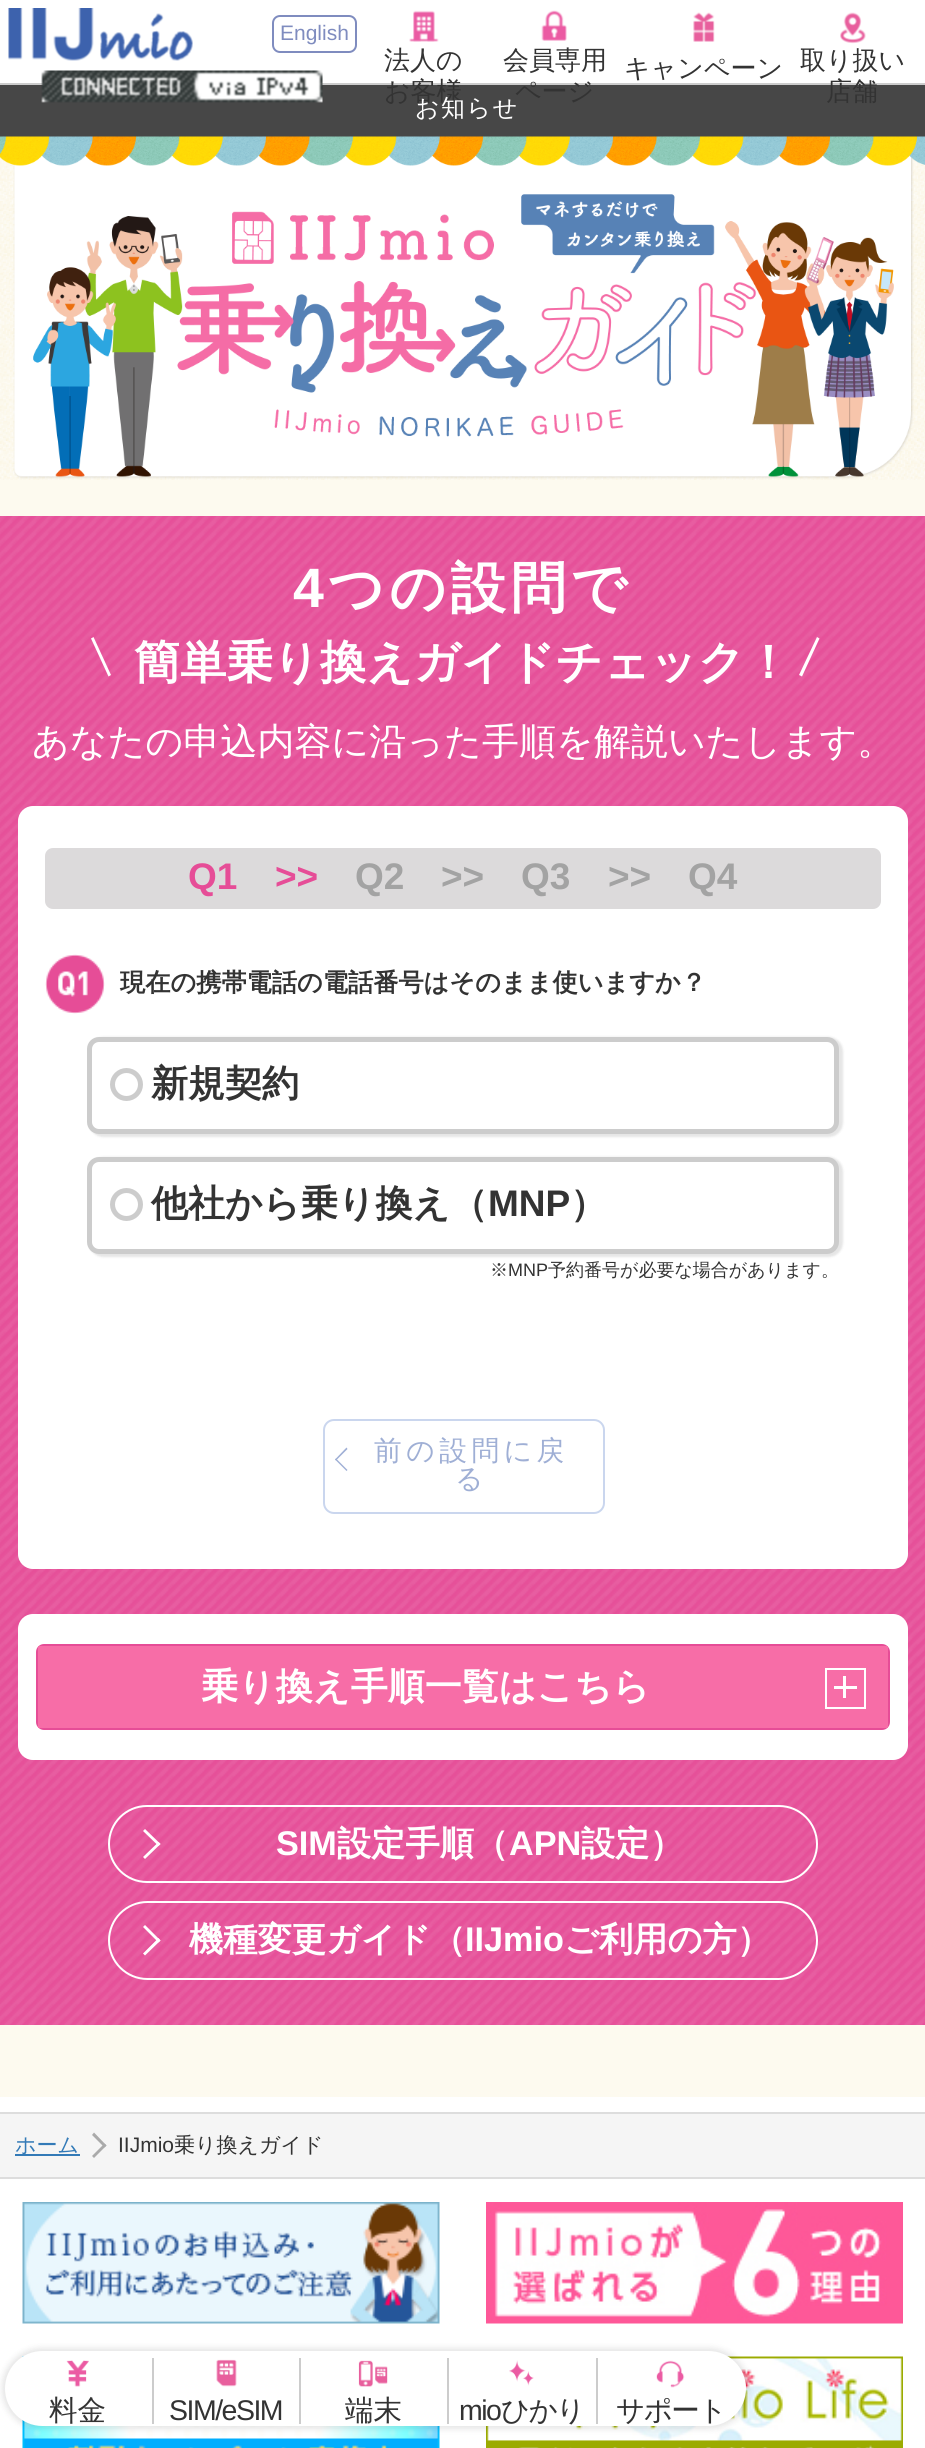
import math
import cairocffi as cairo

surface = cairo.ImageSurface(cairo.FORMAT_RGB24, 925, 2448)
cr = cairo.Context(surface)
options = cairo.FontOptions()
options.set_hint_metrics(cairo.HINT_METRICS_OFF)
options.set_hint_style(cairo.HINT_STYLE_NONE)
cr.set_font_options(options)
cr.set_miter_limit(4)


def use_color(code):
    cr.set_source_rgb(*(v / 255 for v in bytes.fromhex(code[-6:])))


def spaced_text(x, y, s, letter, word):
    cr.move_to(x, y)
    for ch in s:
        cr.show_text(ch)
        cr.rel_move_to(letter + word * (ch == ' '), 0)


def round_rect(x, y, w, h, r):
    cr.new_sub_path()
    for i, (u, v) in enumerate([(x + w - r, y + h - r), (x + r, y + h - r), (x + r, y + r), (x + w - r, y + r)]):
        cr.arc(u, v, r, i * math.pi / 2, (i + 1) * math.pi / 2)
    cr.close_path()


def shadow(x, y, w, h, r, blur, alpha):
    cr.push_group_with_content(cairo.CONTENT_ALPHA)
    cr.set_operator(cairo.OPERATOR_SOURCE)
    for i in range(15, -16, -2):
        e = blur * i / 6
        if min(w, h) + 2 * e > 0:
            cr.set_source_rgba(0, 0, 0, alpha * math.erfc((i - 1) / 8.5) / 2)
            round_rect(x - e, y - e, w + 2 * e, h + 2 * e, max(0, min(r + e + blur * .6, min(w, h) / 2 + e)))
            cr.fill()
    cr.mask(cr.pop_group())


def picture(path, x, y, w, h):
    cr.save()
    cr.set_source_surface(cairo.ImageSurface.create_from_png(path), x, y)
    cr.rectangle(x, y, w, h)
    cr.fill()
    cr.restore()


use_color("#ffffff")
cr.paint()
use_color("#cccccc")
cr.rectangle(0, 83, 925, 2)
cr.fill()
picture("img1.png", 8, 8, 185, 53)
round_rect(273, 16, 83, 36, 7)
use_color("#7f8cbf")
cr.stroke()
cr.select_font_face("Liberation Sans")
cr.set_font_size(21)
cr.move_to(280, 40)
cr.show_text("English")
use_color("#474747")
cr.rectangle(0, 85, 925, 52)
cr.fill()
picture("img2.png", 41, 70, 282, 33)
picture("img3.png", 409, 10, 30, 32)
cr.select_font_face("WenQuanYi Zen Hei Medium")
cr.set_font_size(26)
use_color("#333333")
cr.move_to(384, 69)
cr.show_text("法人の")
cr.move_to(384, 100)
cr.show_text("お客様")
picture("img4.png", 541, 10, 26, 31)
cr.move_to(503, 69)
cr.show_text("会員専用")
cr.move_to(515, 100)
cr.show_text("ページ")
picture("img5.png", 693, 12, 22, 30)
cr.move_to(624, 77)
cr.show_text("キャンペーン")
picture("img6.png", 840, 12, 26, 32)
cr.move_to(800, 69)
cr.show_text("取り扱い")
cr.move_to(826, 100)
cr.show_text("店舗")
use_color("#fdfaef")
cr.rectangle(0, 480, 925, 1617)
cr.fill()
cr.set_font_size(24)
use_color("#ffffff")
spaced_text(415, 116, "お知らせ", 1.5, 0)
picture("img7.png", 0, 136, 925, 344)
picture("img8.png", 0, 516, 925, 1509)
cr.select_font_face("Liberation Sans", cairo.FONT_SLANT_NORMAL, cairo.FONT_WEIGHT_BOLD)
cr.set_font_size(55.5)
spaced_text(293, 607, "4", 4.5, 0)
cr.select_font_face("WenQuanYi Zen Hei", cairo.FONT_SLANT_NORMAL, cairo.FONT_WEIGHT_BOLD)
spaced_text(328, 607, "つの設問で", 4.5, 0)
cr.new_path()
cr.move_to(91, 638.5)
cr.line_to(93.5, 637)
cr.line_to(111, 675)
cr.line_to(108.5, 676.5)
cr.close_path()
cr.fill()
cr.set_font_size(46.25)
cr.move_to(134, 678)
cr.show_text("簡単乗り換えガイドチェック！")
cr.new_path()
cr.move_to(817, 637)
cr.line_to(819.5, 638.5)
cr.line_to(802, 676.5)
cr.line_to(799, 675)
cr.close_path()
cr.fill()
cr.select_font_face("WenQuanYi Zen Hei Medium")
cr.set_font_size(37)
cr.move_to(32, 754)
cr.show_text("あなたの申込内容に沿った手順を解説いたします。")
round_rect(18, 806, 890, 763, 15)
cr.fill()
use_color("#dcdadb")
round_rect(45, 848, 836, 61, 8)
cr.fill()
cr.select_font_face("Liberation Sans", cairo.FONT_SLANT_NORMAL, cairo.FONT_WEIGHT_BOLD)
use_color("#e64d97")
cr.move_to(188, 889)
cr.show_text("Q1")
cr.move_to(275, 889)
cr.show_text(">>")
use_color("#a3a3a3")
cr.move_to(355, 889)
cr.show_text("Q2")
cr.move_to(441, 889)
cr.show_text(">>")
cr.move_to(521, 889)
cr.show_text("Q3")
cr.move_to(608, 889)
cr.show_text(">>")
cr.move_to(688, 889)
cr.show_text("Q4")
picture("img9.png", 45, 954, 60, 60)
cr.select_font_face("WenQuanYi Zen Hei", cairo.FONT_SLANT_NORMAL, cairo.FONT_WEIGHT_BOLD)
cr.set_font_size(25.2)
use_color("#333333")
cr.move_to(120, 991)
cr.show_text("現在の携帯電話の電話番号はそのまま使いますか？")
use_color("#000000")
shadow(89, 1037, 754, 100, 14, 1, 0.1)
use_color("#ffffff")
round_rect(89.5, 1039.5, 747, 92, 9.5)
cr.fill_preserve()
use_color("#cccccc")
cr.set_line_width(5)
cr.stroke()
cr.arc(126.5, 1084.5, 14, 0, 2 * math.pi)
cr.stroke()
cr.set_font_size(37)
use_color("#333333")
cr.move_to(151, 1096)
cr.show_text("新規契約")
use_color("#000000")
shadow(89, 1157, 754, 100, 14, 1, 0.1)
use_color("#ffffff")
round_rect(89.5, 1159.5, 747, 92, 9.5)
cr.fill_preserve()
use_color("#cccccc")
cr.stroke()
cr.arc(126.5, 1204.5, 14, 0, 2 * math.pi)
cr.stroke()
use_color("#333333")
cr.move_to(151, 1216)
cr.show_text("他社から乗り換え（")
cr.select_font_face("Liberation Sans", cairo.FONT_SLANT_NORMAL, cairo.FONT_WEIGHT_BOLD)
cr.move_to(488, 1216)
cr.show_text("MNP")
cr.select_font_face("WenQuanYi Zen Hei", cairo.FONT_SLANT_NORMAL, cairo.FONT_WEIGHT_BOLD)
cr.move_to(570, 1216)
cr.show_text("）")
cr.select_font_face("WenQuanYi Zen Hei Medium")
cr.set_font_size(18)
cr.move_to(490, 1276)
cr.show_text("※")
cr.select_font_face("Liberation Sans")
cr.move_to(508, 1276)
cr.show_text("MNP")
cr.select_font_face("WenQuanYi Zen Hei Medium")
cr.move_to(548, 1276)
cr.show_text("予約番号が必要な場合があります。")
round_rect(324, 1420, 280, 93, 10)
use_color("#cad6ee")
cr.set_line_width(2)
cr.stroke()
use_color("#9fafd5")
cr.new_path()
cr.move_to(335, 1459.5)
cr.line_to(346.5, 1447.5)
cr.line_to(347.5, 1449)
cr.line_to(336, 1460.5)
cr.close_path()
cr.fill()
cr.new_path()
cr.move_to(335, 1459.5)
cr.line_to(336, 1458.5)
cr.line_to(347.5, 1470)
cr.line_to(346.5, 1471)
cr.close_path()
cr.fill()
cr.set_font_size(27.75)
spaced_text(374, 1460, "前の設問に戻", 4.5, 0)
spaced_text(455, 1488, "る", 4.5, 0)
use_color("#ffffff")
round_rect(18, 1614, 890, 146, 15)
cr.fill()
round_rect(37, 1645, 852, 84, 7)
use_color("#e64d97")
cr.stroke()
use_color("#f76da7")
cr.rectangle(38, 1646, 850, 82)
cr.fill()
cr.select_font_face("WenQuanYi Zen Hei", cairo.FONT_SLANT_NORMAL, cairo.FONT_WEIGHT_BOLD)
cr.set_font_size(37)
use_color("#ffffff")
cr.move_to(201, 1699)
cr.show_text("乗り換え手順一覧はこちら")
cr.rectangle(826, 1669, 39, 39)
cr.stroke()
cr.rectangle(843, 1676, 3, 22)
cr.fill()
cr.rectangle(834, 1686, 23, 3)
cr.fill()
round_rect(109, 1806, 708, 76, 38)
cr.stroke()
cr.new_path()
cr.move_to(145, 1829)
cr.line_to(160.5, 1844)
cr.line_to(158.5, 1846)
cr.line_to(143, 1831)
cr.close_path()
cr.fill()
cr.new_path()
cr.move_to(158.5, 1842)
cr.line_to(160.5, 1844)
cr.line_to(145, 1859)
cr.line_to(143, 1857)
cr.close_path()
cr.fill()
cr.select_font_face("Liberation Sans", cairo.FONT_SLANT_NORMAL, cairo.FONT_WEIGHT_BOLD)
cr.set_font_size(34.25)
cr.move_to(276, 1855)
cr.show_text("SIM")
cr.select_font_face("WenQuanYi Zen Hei", cairo.FONT_SLANT_NORMAL, cairo.FONT_WEIGHT_BOLD)
cr.move_to(337, 1855)
cr.show_text("設定手順（")
cr.select_font_face("Liberation Sans", cairo.FONT_SLANT_NORMAL, cairo.FONT_WEIGHT_BOLD)
cr.move_to(509, 1855)
cr.show_text("APN")
cr.select_font_face("WenQuanYi Zen Hei", cairo.FONT_SLANT_NORMAL, cairo.FONT_WEIGHT_BOLD)
cr.move_to(581, 1855)
cr.show_text("設定）")
round_rect(109, 1902, 708, 77, 38.5)
cr.stroke()
cr.new_path()
cr.move_to(145, 1925)
cr.line_to(160.5, 1940.5)
cr.line_to(158.5, 1942.5)
cr.line_to(143, 1927)
cr.close_path()
cr.fill()
cr.new_path()
cr.move_to(158.5, 1938)
cr.line_to(160.5, 1940.5)
cr.line_to(145, 1955.5)
cr.line_to(143, 1953.5)
cr.close_path()
cr.fill()
cr.move_to(189, 1951)
cr.show_text("機種変更ガイド（")
cr.select_font_face("Liberation Sans", cairo.FONT_SLANT_NORMAL, cairo.FONT_WEIGHT_BOLD)
cr.move_to(465, 1951)
cr.show_text("IIJmio")
cr.select_font_face("WenQuanYi Zen Hei", cairo.FONT_SLANT_NORMAL, cairo.FONT_WEIGHT_BOLD)
cr.move_to(564, 1951)
cr.show_text("ご利用の方）")
use_color("#f5f5f5")
cr.rectangle(0, 2114, 925, 63)
cr.fill()
use_color("#dddddd")
cr.rectangle(0, 2112, 925, 2)
cr.fill()
cr.rectangle(0, 2177, 925, 2)
cr.fill()
use_color("#337ab7")
cr.rectangle(15, 2154, 65, 2)
cr.fill()
cr.select_font_face("WenQuanYi Zen Hei Medium")
cr.set_font_size(21)
cr.move_to(15, 2152)
cr.show_text("ホーム")
use_color("#aaaaaa")
cr.new_path()
cr.move_to(94, 2132.5)
cr.line_to(106.5, 2145.5)
cr.line_to(104.5, 2147.5)
cr.line_to(92, 2135)
cr.close_path()
cr.fill()
cr.new_path()
cr.move_to(104.5, 2143.5)
cr.line_to(106.5, 2145.5)
cr.line_to(94, 2158)
cr.line_to(92, 2156)
cr.close_path()
cr.fill()
cr.select_font_face("Liberation Sans")
use_color("#333333")
cr.move_to(118, 2152)
cr.show_text("IIJmio")
cr.select_font_face("WenQuanYi Zen Hei Medium")
cr.move_to(174, 2152)
cr.show_text("乗り換えガイド")
picture("img10.png", 22, 2202, 418, 122)
picture("img11.png", 486, 2202, 417, 122)
picture("img12.png", 22, 2356, 418, 92)
picture("img13.png", 486, 2356, 417, 92)
use_color("#000000")
shadow(2, 2348, 747, 81, 40.5, 3, 0.1)
use_color("#ffffff")
round_rect(5, 2351, 741, 75, 37.5)
cr.fill()
use_color("#cccccc")
cr.rectangle(152, 2358, 2, 66)
cr.fill()
picture("img14.png", 66, 2360, 23, 27)
cr.set_font_size(28.5)
use_color("#333333")
cr.move_to(49, 2420)
cr.show_text("料金")
use_color("#cccccc")
cr.rectangle(299, 2358, 2, 66)
cr.fill()
picture("img15.png", 216, 2359, 21, 28)
cr.select_font_face("Liberation Sans")
use_color("#333333")
spaced_text(169, 2420, "SIM/eSIM", -1.5, 0)
use_color("#cccccc")
cr.rectangle(447, 2358, 2, 66)
cr.fill()
picture("img16.png", 358, 2360, 30, 27)
cr.select_font_face("WenQuanYi Zen Hei Medium")
use_color("#333333")
cr.move_to(345, 2420)
cr.show_text("端末")
use_color("#cccccc")
cr.rectangle(596, 2358, 2, 66)
cr.fill()
picture("img17.png", 509, 2360, 25, 26)
cr.select_font_face("Liberation Sans")
use_color("#333333")
spaced_text(459, 2420, "mio", -1.5, 0)
cr.select_font_face("WenQuanYi Zen Hei Medium")
spaced_text(501, 2420, "ひかり", -1.5, 0)
picture("img18.png", 656, 2360, 29, 28)
spaced_text(616, 2420, "サポート", -1.5, 0)
surface.write_to_png("result.png")
